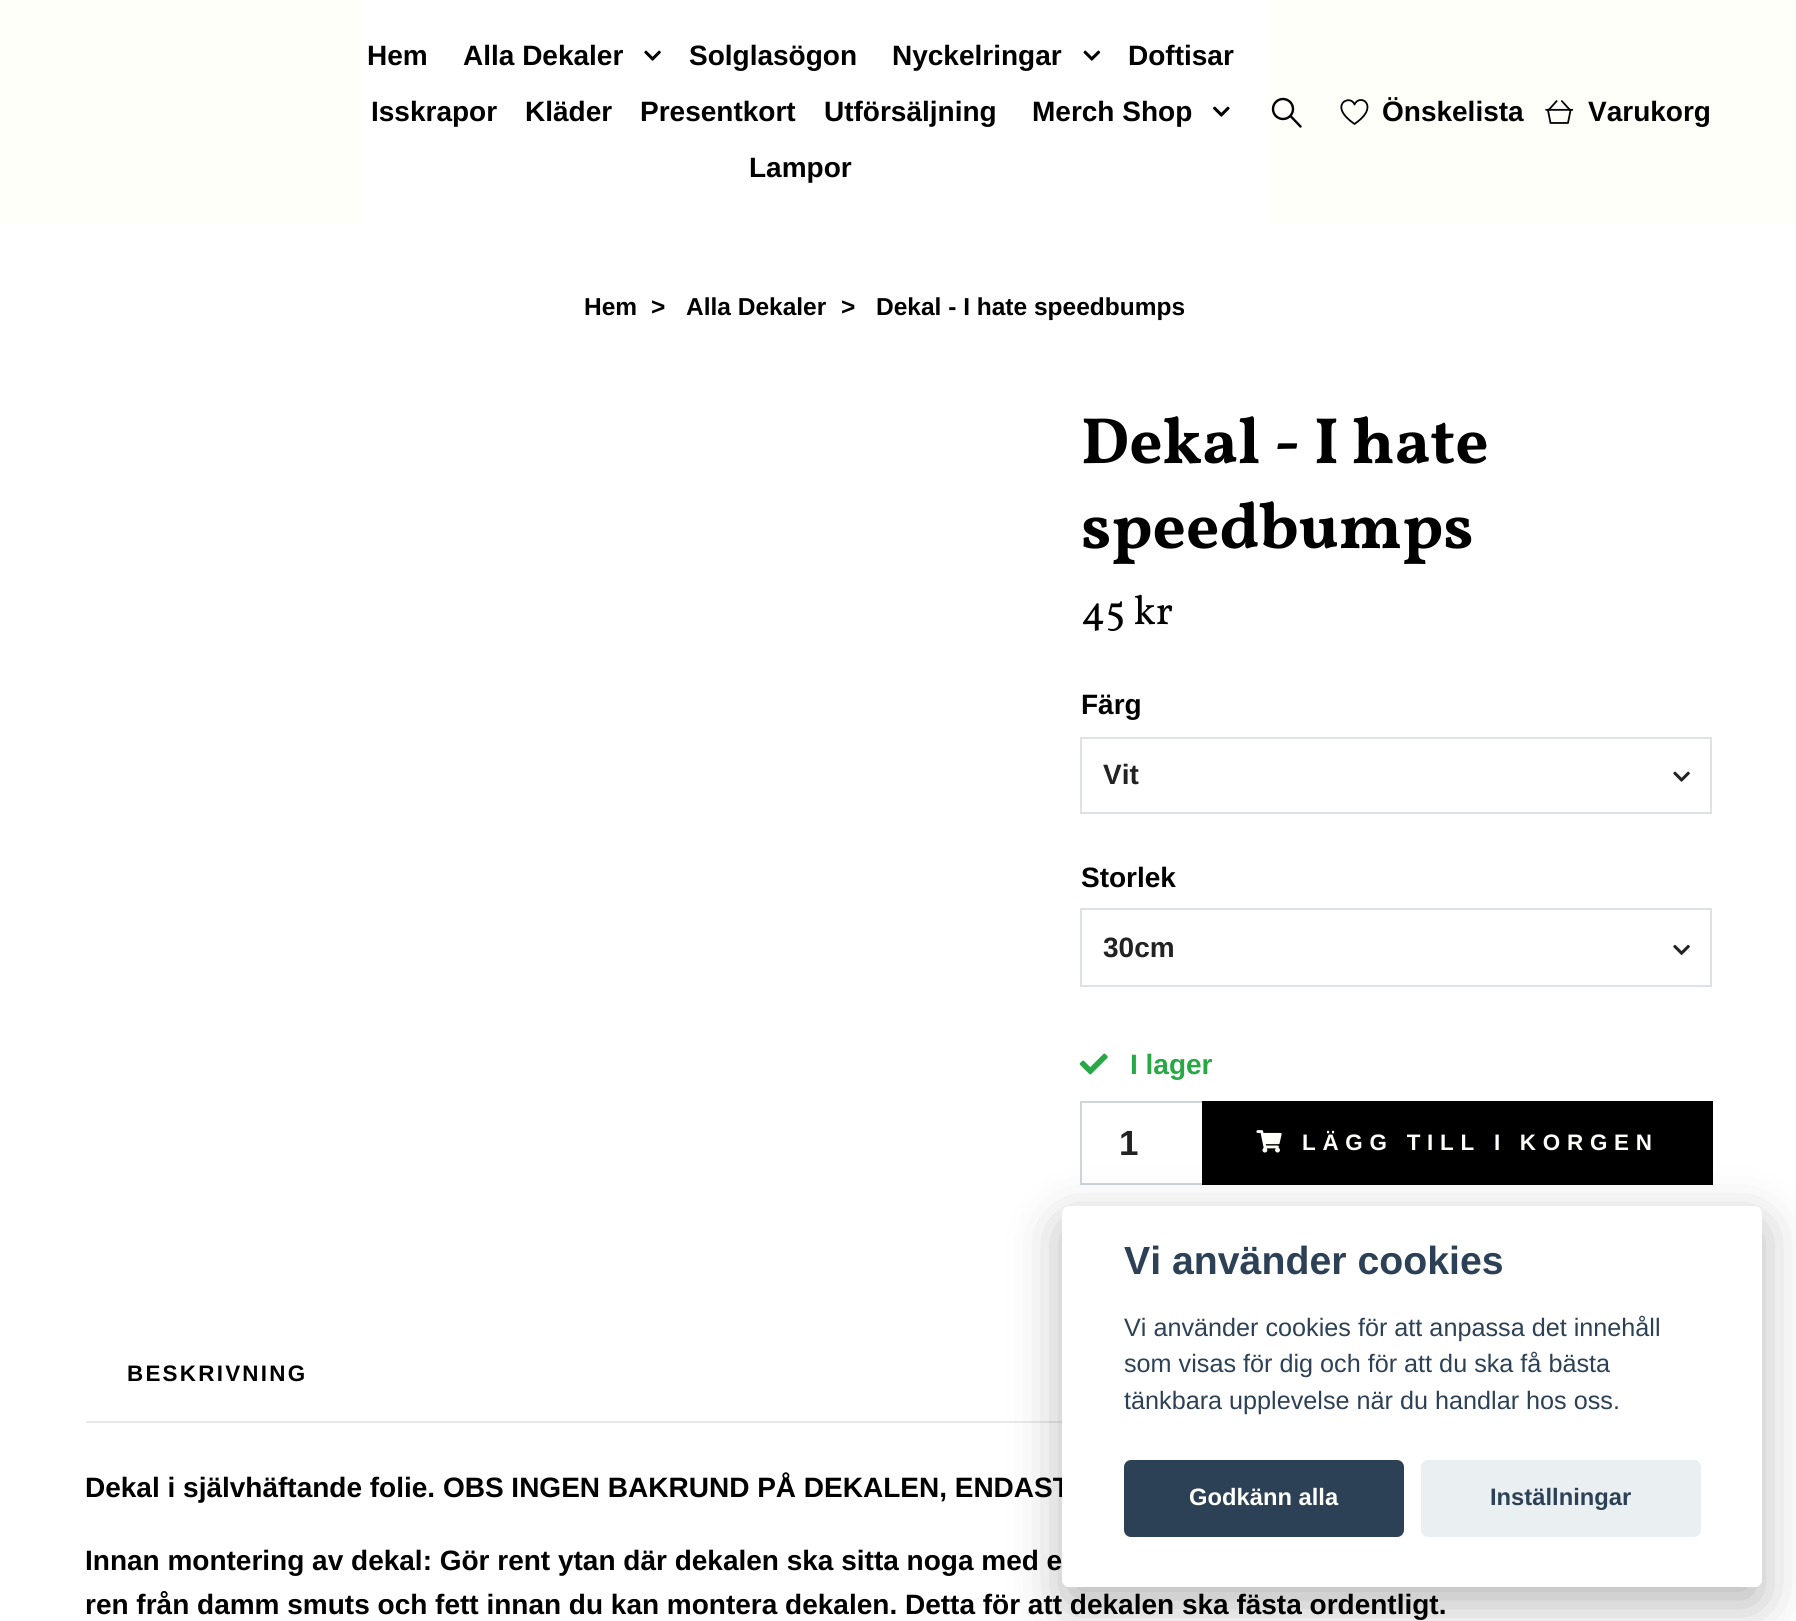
import math
import cairocffi as cairo

surface = cairo.ImageSurface(cairo.FORMAT_RGB24, 1796, 1621)
cr = cairo.Context(surface)
options = cairo.FontOptions()
options.set_hint_metrics(cairo.HINT_METRICS_OFF)
options.set_hint_style(cairo.HINT_STYLE_NONE)
cr.set_font_options(options)
cr.set_miter_limit(4)


def use_color(code):
    cr.set_source_rgb(*(v / 255 for v in bytes.fromhex(code[-6:])))


def spaced_text(x, y, s, letter, word):
    cr.move_to(x, y)
    for ch in s:
        cr.show_text(ch)
        cr.rel_move_to(letter + word * (ch == ' '), 0)


def round_rect(x, y, w, h, r):
    cr.new_sub_path()
    for i, (u, v) in enumerate([(x + w - r, y + h - r), (x + r, y + h - r), (x + r, y + r), (x + w - r, y + r)]):
        cr.arc(u, v, r, i * math.pi / 2, (i + 1) * math.pi / 2)
    cr.close_path()


def shadow(x, y, w, h, r, blur, alpha):
    cr.push_group_with_content(cairo.CONTENT_ALPHA)
    cr.set_operator(cairo.OPERATOR_SOURCE)
    for i in range(15, -16, -2):
        e = blur * i / 6
        if min(w, h) + 2 * e > 0:
            cr.set_source_rgba(0, 0, 0, alpha * math.erfc((i - 1) / 8.5) / 2)
            round_rect(x - e, y - e, w + 2 * e, h + 2 * e, max(0, min(r + e + blur * .6, min(w, h) / 2 + e)))
            cr.fill()
    cr.mask(cr.pop_group())


def picture(path, x, y, w, h):
    cr.save()
    cr.set_source_surface(cairo.ImageSurface.create_from_png(path), x, y)
    cr.rectangle(x, y, w, h)
    cr.fill()
    cr.restore()


use_color("#ffffff")
cr.paint()
use_color("#fffffa")
cr.rectangle(0, 0, 1796, 224)
cr.fill()
use_color("#ffffff")
cr.rectangle(362, 0, 905, 224)
cr.fill()
cr.select_font_face("Arimo", cairo.FONT_SLANT_NORMAL, cairo.FONT_WEIGHT_BOLD)
cr.set_font_size(28)
use_color("#000000")
cr.move_to(367, 65)
cr.show_text("Hem")
cr.move_to(463, 65)
cr.show_text("Alla Dekaler")
picture("img1.png", 644, 50, 17, 11)
cr.move_to(689, 65)
cr.show_text("Solglasögon")
cr.move_to(892, 65)
cr.show_text("Nyckelringar")
picture("img2.png", 1083, 50, 18, 11)
cr.move_to(1128, 65)
cr.show_text("Doftisar")
cr.move_to(371, 121)
cr.show_text("Isskrapor")
cr.move_to(525, 121)
cr.show_text("Kläder")
cr.move_to(640, 121)
cr.show_text("Presentkort")
cr.move_to(824, 121)
cr.show_text("Utförsäljning")
cr.move_to(1032, 121)
cr.show_text("Merch Shop")
picture("img3.png", 1213, 106, 17, 11)
cr.move_to(749, 177)
cr.show_text("Lampor")
cr.new_path()
cr.move_to(1290.5, 116)
cr.line_to(1300.5, 126.5)
cr.set_line_width(2.4)
cr.set_line_cap(cairo.LINE_CAP_ROUND)
cr.set_line_join(cairo.LINE_JOIN_ROUND)
cr.stroke()
cr.arc(1283, 109, 10, 0, 2 * math.pi)
cr.set_line_cap(cairo.LINE_CAP_BUTT)
cr.set_line_join(cairo.LINE_JOIN_MITER)
cr.stroke()
cr.new_path()
cr.move_to(1361, 100)
cr.curve_to(1358, 100, 1355.5, 102, 1354.5, 104.5)
cr.curve_to(1350.5, 93.5, 1327, 105, 1354.5, 124)
cr.curve_to(1363, 118, 1367.5, 112.5, 1367.5, 107)
cr.curve_to(1367.5, 103, 1364.5, 100, 1361, 100)
cr.close_path()
cr.set_line_width(1.8)
cr.set_line_cap(cairo.LINE_CAP_ROUND)
cr.set_line_join(cairo.LINE_JOIN_ROUND)
cr.stroke()
cr.move_to(1382, 121)
cr.show_text("Önskelista")
picture("img4.png", 1545, 100, 29, 24)
cr.move_to(1588, 121)
cr.show_text("Varukorg")
cr.set_font_size(24.5)
cr.move_to(584, 315)
cr.show_text("Hem")
cr.move_to(651, 315)
cr.show_text(">")
cr.move_to(686, 315)
cr.show_text("Alla Dekaler")
cr.move_to(841, 315)
cr.show_text(">")
cr.move_to(876, 315)
cr.show_text("Dekal - I hate speedbumps")
cr.select_font_face("Vollkorn", cairo.FONT_SLANT_NORMAL, cairo.FONT_WEIGHT_BOLD)
cr.set_font_size(65.5)
cr.move_to(1081, 463)
cr.show_text("Dekal - I hate")
cr.move_to(1081, 548)
cr.show_text("speedbumps")
cr.select_font_face("Vollkorn")
cr.set_font_size(41)
cr.move_to(1081, 624)
cr.show_text("45 kr")
cr.select_font_face("Arimo", cairo.FONT_SLANT_NORMAL, cairo.FONT_WEIGHT_BOLD)
cr.set_font_size(28)
cr.move_to(1081, 714)
cr.show_text("Färg")
cr.rectangle(1081, 738, 630, 75)
use_color("#dee2e6")
cr.set_line_width(2)
cr.set_line_cap(cairo.LINE_CAP_BUTT)
cr.set_line_join(cairo.LINE_JOIN_MITER)
cr.stroke()
use_color("#222222")
cr.move_to(1103, 784)
cr.show_text("Vit")
picture("img5.png", 1673, 771, 17, 11)
use_color("#000000")
cr.move_to(1081, 887)
cr.show_text("Storlek")
cr.rectangle(1081, 909, 630, 77)
use_color("#dee2e6")
cr.stroke()
use_color("#222222")
cr.move_to(1103, 957)
cr.show_text("30cm")
picture("img6.png", 1673, 944, 17, 11)
picture("img7.png", 1079, 1053, 29, 22)
use_color("#28a745")
cr.move_to(1130, 1074)
cr.show_text("I lager")
cr.rectangle(1081, 1102, 122, 82)
use_color("#ced4da")
cr.stroke()
cr.set_font_size(35)
use_color("#222222")
cr.move_to(1119, 1155)
cr.show_text("1")
use_color("#000000")
cr.rectangle(1202, 1101, 511, 84)
cr.fill()
picture("img8.png", 1256, 1130, 26, 23)
cr.set_font_size(22.4)
use_color("#fffffa")
spaced_text(1302, 1150, "LÄGG TILL I KORGEN", 6.75, 0)
use_color("#e9e9e9")
cr.rectangle(86, 1421, 976, 2)
cr.fill()
use_color("#000000")
spaced_text(127, 1381, "BESKRIVNING", 2.25, 0)
cr.set_font_size(28)
cr.move_to(85, 1497)
cr.show_text("Dekal i självhäftande folie. OBS INGEN BAKRUND PÅ DEKALEN, ENDAST")
cr.move_to(85, 1570)
cr.show_text("Innan montering av dekal: Gör rent ytan där dekalen ska sitta noga med e")
cr.move_to(85, 1614)
cr.show_text("ren från damm smuts och fett innan du kan montera dekalen. Detta för att dekalen ska fästa ordentligt.")
use_color("#020203")
shadow(1062, 1223, 700, 382, 7, 26, 0.28)
use_color("#ffffff")
round_rect(1062, 1206, 700, 381, 7)
cr.fill()
cr.select_font_face("Liberation Sans", cairo.FONT_SLANT_NORMAL, cairo.FONT_WEIGHT_BOLD)
cr.set_font_size(39.25)
use_color("#2d4156")
cr.move_to(1124, 1274)
cr.show_text("Vi använder cookies")
cr.select_font_face("Liberation Sans")
cr.set_font_size(25.2)
cr.move_to(1124, 1336)
cr.show_text("Vi använder cookies för att anpassa det innehåll")
cr.move_to(1124, 1372)
cr.show_text("som visas för dig och för att du ska få bästa")
cr.move_to(1124, 1409)
cr.show_text("tänkbara upplevelse när du handlar hos oss.")
round_rect(1124, 1460, 280, 77, 7)
cr.fill()
cr.select_font_face("Liberation Sans", cairo.FONT_SLANT_NORMAL, cairo.FONT_WEIGHT_BOLD)
cr.set_font_size(23.75)
use_color("#fffffa")
cr.move_to(1189, 1505)
cr.show_text("Godkänn alla")
use_color("#eaeff2")
round_rect(1421, 1460, 280, 77, 7)
cr.fill()
use_color("#2d4156")
cr.move_to(1490, 1505)
cr.show_text("Inställningar")
surface.write_to_png("result.png")
